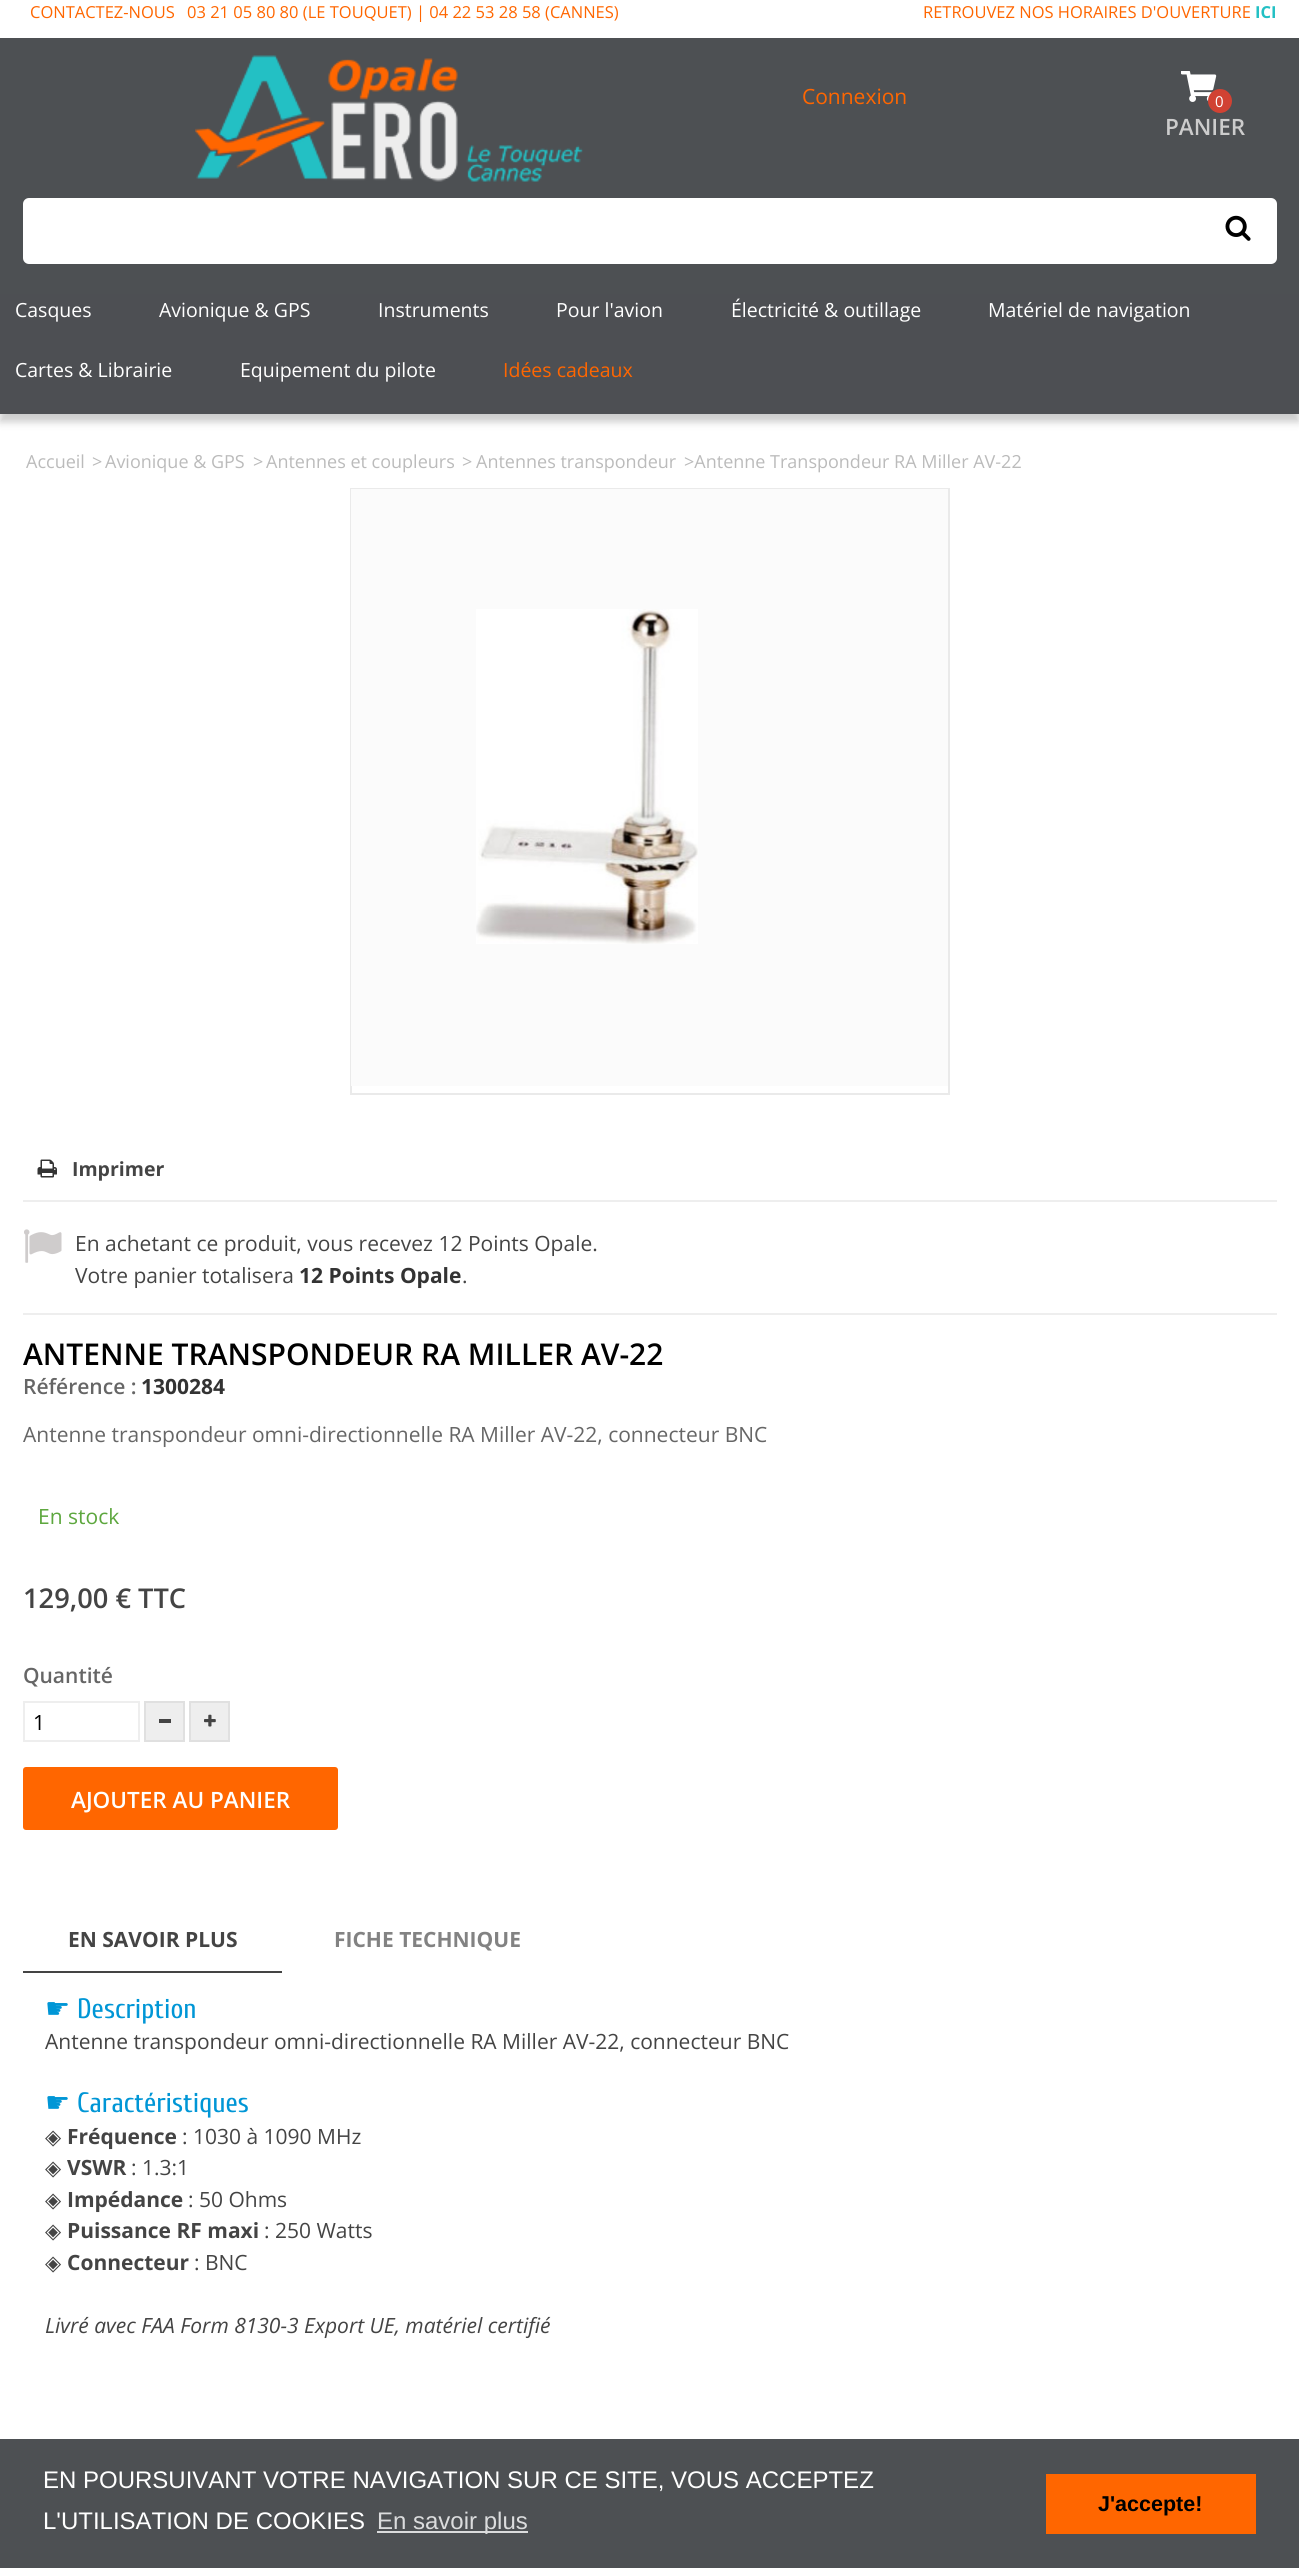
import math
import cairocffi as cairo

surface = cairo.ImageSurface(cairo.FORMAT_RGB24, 1299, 2568)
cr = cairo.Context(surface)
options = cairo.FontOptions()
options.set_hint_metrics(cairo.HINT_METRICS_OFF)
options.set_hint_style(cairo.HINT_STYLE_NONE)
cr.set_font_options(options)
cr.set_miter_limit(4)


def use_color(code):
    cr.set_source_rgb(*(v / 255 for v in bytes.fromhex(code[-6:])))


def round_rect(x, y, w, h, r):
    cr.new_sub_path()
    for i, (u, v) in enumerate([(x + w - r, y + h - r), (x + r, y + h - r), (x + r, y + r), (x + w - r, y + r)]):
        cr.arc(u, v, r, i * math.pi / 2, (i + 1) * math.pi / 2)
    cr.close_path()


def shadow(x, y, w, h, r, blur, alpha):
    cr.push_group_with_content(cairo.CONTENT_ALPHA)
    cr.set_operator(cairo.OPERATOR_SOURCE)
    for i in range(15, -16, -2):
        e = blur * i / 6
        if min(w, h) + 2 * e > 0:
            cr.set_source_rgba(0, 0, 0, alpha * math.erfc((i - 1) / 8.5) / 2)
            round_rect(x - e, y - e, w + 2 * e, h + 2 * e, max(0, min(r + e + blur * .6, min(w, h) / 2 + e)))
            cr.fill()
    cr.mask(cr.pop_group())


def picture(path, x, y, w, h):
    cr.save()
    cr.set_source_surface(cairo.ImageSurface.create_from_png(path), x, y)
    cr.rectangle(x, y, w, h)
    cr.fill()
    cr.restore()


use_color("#ffffff")
cr.paint()
use_color("#4d5053")
cr.rectangle(0, 38, 1299, 256)
cr.fill()
cr.select_font_face("Open Sans")
cr.set_font_size(16.5)
use_color("#ff6600")
cr.move_to(30, 18)
cr.show_text("CONTACTEZ-NOUS")
cr.move_to(187, 18)
cr.show_text("03 21 05 80 80 (LE TOUQUET) | 04 22 53 28 58 (CANNES)")
cr.move_to(923, 18)
cr.show_text("RETROUVEZ NOS HORAIRES D'OUVERTURE")
cr.select_font_face("Open Sans", cairo.FONT_SLANT_NORMAL, cairo.FONT_WEIGHT_BOLD)
use_color("#23c0c4")
cr.move_to(1255, 18)
cr.show_text("ICI")
picture("img1.png", 195, 55, 388, 127)
cr.select_font_face("Open Sans")
cr.set_font_size(21)
use_color("#ff6600")
cr.move_to(802, 104)
cr.show_text("Connexion")
picture("img2.png", 1181, 71, 36, 31)
use_color("#d14233")
cr.arc(1220, 101, 12, 0, 2 * math.pi)
cr.fill()
cr.set_font_size(15)
use_color("#ffffff")
cr.move_to(1215, 107)
cr.show_text("0")
cr.select_font_face("Open Sans SemiBold")
cr.set_font_size(22.5)
use_color("#cccccc")
cr.move_to(1165, 135)
cr.show_text("PANIER")
use_color("#ffffff")
round_rect(23, 198, 1254, 66, 6)
cr.fill()
picture("img3.png", 1225, 215, 26, 26)
use_color("#000000")
shadow(0, 302, 1299, 120, 0, 4, 0.2)
use_color("#4d4f53")
cr.rectangle(0, 294, 1299, 120)
cr.fill()
cr.select_font_face("Open Sans")
cr.set_font_size(19.5)
use_color("#ffffff")
cr.move_to(15, 317)
cr.show_text("Casques")
cr.move_to(159, 317)
cr.show_text("Avionique & GPS")
cr.move_to(378, 317)
cr.show_text("Instruments")
cr.move_to(556, 317)
cr.show_text("Pour l'avion")
cr.move_to(731, 317)
cr.show_text("Électricité & outillage")
cr.move_to(988, 317)
cr.show_text("Matériel de navigation")
cr.move_to(15, 377)
cr.show_text("Cartes & Librairie")
cr.move_to(240, 377)
cr.show_text("Equipement du pilote")
use_color("#ff6600")
cr.move_to(503, 377)
cr.show_text("Idées cadeaux")
cr.set_font_size(18)
use_color("#bbbbbb")
cr.move_to(26, 468)
cr.show_text("Accueil")
cr.move_to(92, 468)
cr.show_text(">")
cr.move_to(105, 468)
cr.show_text("Avionique & GPS")
cr.move_to(253, 468)
cr.show_text(">")
cr.move_to(266, 468)
cr.show_text("Antennes et coupleurs")
cr.move_to(462, 468)
cr.show_text(">")
cr.move_to(476, 468)
cr.show_text("Antennes transpondeur")
cr.move_to(684, 468)
cr.show_text(">Antenne Transpondeur RA Miller AV-22")
cr.rectangle(351, 489, 598, 605)
use_color("#eaeaea")
cr.stroke()
use_color("#fbfbfb")
cr.rectangle(351, 489, 597, 597)
cr.fill()
picture("img4.png", 476, 609, 222, 335)
picture("img5.png", 37, 1159, 20, 19)
cr.select_font_face("Open Sans", cairo.FONT_SLANT_NORMAL, cairo.FONT_WEIGHT_BOLD)
cr.set_font_size(19.5)
use_color("#444444")
cr.move_to(72, 1176)
cr.show_text("Imprimer")
use_color("#eeeeee")
cr.rectangle(23, 1200, 1254, 2)
cr.fill()
cr.rectangle(23, 1313, 1254, 2)
cr.fill()
picture("img6.png", 24, 1229, 38, 34)
cr.select_font_face("Open Sans")
cr.set_font_size(21)
use_color("#444444")
cr.move_to(75, 1251)
cr.show_text("En achetant ce produit, vous recevez 12 Points Opale.")
cr.move_to(75, 1283)
cr.show_text("Votre panier totalisera")
cr.select_font_face("Open Sans", cairo.FONT_SLANT_NORMAL, cairo.FONT_WEIGHT_BOLD)
use_color("#333333")
cr.move_to(299, 1283)
cr.show_text("12 Points Opale")
cr.select_font_face("Open Sans")
use_color("#444444")
cr.move_to(462, 1283)
cr.show_text(".")
cr.select_font_face("Open Sans SemiBold")
cr.set_font_size(30)
use_color("#000000")
cr.move_to(23, 1365)
cr.show_text("ANTENNE TRANSPONDEUR RA MILLER AV-22")
cr.set_font_size(21)
use_color("#666666")
cr.move_to(23, 1394)
cr.show_text("Référence :")
cr.select_font_face("Open Sans", cairo.FONT_SLANT_NORMAL, cairo.FONT_WEIGHT_BOLD)
use_color("#333333")
cr.move_to(141, 1394)
cr.show_text("1300284")
cr.select_font_face("Open Sans")
use_color("#666666")
cr.move_to(23, 1442)
cr.show_text("Antenne transpondeur omni-directionnelle RA Miller AV-22, connecteur BNC")
use_color("#5da73e")
cr.move_to(38, 1524)
cr.show_text("En stock")
cr.select_font_face("Open Sans SemiBold")
cr.set_font_size(27.25)
use_color("#444444")
cr.move_to(23, 1608)
cr.show_text("129,00 € TTC")
cr.set_font_size(21)
use_color("#666666")
cr.move_to(23, 1683)
cr.show_text("Quantité")
cr.rectangle(24, 1702, 115, 39)
use_color("#eeeeee")
cr.stroke()
cr.select_font_face("Open Sans")
use_color("#000000")
cr.move_to(33, 1730)
cr.show_text("1")
use_color("#eeeeee")
cr.rectangle(145, 1702, 39, 39)
cr.fill_preserve()
use_color("#e0e0e0")
cr.stroke()
use_color("#444444")
cr.rectangle(159, 1719, 12, 4)
cr.fill()
use_color("#eeeeee")
cr.rectangle(190, 1702, 39, 39)
cr.fill_preserve()
use_color("#e0e0e0")
cr.stroke()
picture("img7.png", 204, 1714, 12, 13)
use_color("#ff6600")
round_rect(24.5, 1768.5, 312, 60, 1.5)
cr.fill_preserve()
cr.set_line_width(3)
cr.stroke()
cr.select_font_face("Open Sans SemiBold")
cr.set_font_size(22.5)
use_color("#ffffff")
cr.move_to(71, 1808)
cr.show_text("AJOUTER AU PANIER")
use_color("#444444")
cr.rectangle(23, 1971, 259, 2)
cr.fill()
cr.select_font_face("Open Sans", cairo.FONT_SLANT_NORMAL, cairo.FONT_WEIGHT_BOLD)
cr.set_font_size(21)
cr.move_to(68, 1947)
cr.show_text("EN SAVOIR PLUS")
use_color("#828282")
cr.move_to(334, 1947)
cr.show_text("FICHE TECHNIQUE")
cr.select_font_face("DejaVu Sans")
cr.set_font_size(28)
use_color("#0096d6")
cr.move_to(45, 2018)
cr.show_text("☛")
cr.select_font_face("Cuprum")
cr.move_to(77, 2018)
cr.show_text("Description")
cr.select_font_face("Open Sans")
cr.set_font_size(21)
use_color("#444444")
cr.move_to(45, 2049)
cr.show_text("Antenne transpondeur omni-directionnelle RA Miller AV-22, connecteur BNC")
cr.select_font_face("DejaVu Sans")
cr.set_font_size(28)
use_color("#0096d6")
cr.move_to(45, 2112)
cr.show_text("☛")
cr.select_font_face("Cuprum")
cr.move_to(77, 2112)
cr.show_text("Caractéristiques")
cr.select_font_face("DejaVu Sans")
cr.set_font_size(21)
use_color("#444444")
cr.move_to(45, 2144)
cr.show_text("◈")
cr.select_font_face("Open Sans", cairo.FONT_SLANT_NORMAL, cairo.FONT_WEIGHT_BOLD)
cr.move_to(67, 2144)
cr.show_text("Fréquence")
cr.select_font_face("Open Sans")
cr.move_to(182, 2144)
cr.show_text(": 1030 à 1090 MHz")
cr.select_font_face("DejaVu Sans")
cr.move_to(45, 2175)
cr.show_text("◈")
cr.select_font_face("Open Sans", cairo.FONT_SLANT_NORMAL, cairo.FONT_WEIGHT_BOLD)
cr.move_to(67, 2175)
cr.show_text("VSWR")
cr.select_font_face("Open Sans")
cr.move_to(131, 2175)
cr.show_text(": 1.3:1")
cr.select_font_face("DejaVu Sans")
cr.move_to(45, 2207)
cr.show_text("◈")
cr.select_font_face("Open Sans", cairo.FONT_SLANT_NORMAL, cairo.FONT_WEIGHT_BOLD)
cr.move_to(67, 2207)
cr.show_text("Impédance")
cr.select_font_face("Open Sans")
cr.move_to(188, 2207)
cr.show_text(": 50 Ohms")
cr.select_font_face("DejaVu Sans")
cr.move_to(45, 2238)
cr.show_text("◈")
cr.select_font_face("Open Sans", cairo.FONT_SLANT_NORMAL, cairo.FONT_WEIGHT_BOLD)
cr.move_to(67, 2238)
cr.show_text("Puissance RF maxi")
cr.select_font_face("Open Sans")
cr.move_to(264, 2238)
cr.show_text(": 250 Watts")
cr.select_font_face("DejaVu Sans")
cr.move_to(45, 2270)
cr.show_text("◈")
cr.select_font_face("Open Sans", cairo.FONT_SLANT_NORMAL, cairo.FONT_WEIGHT_BOLD)
cr.move_to(67, 2270)
cr.show_text("Connecteur")
cr.select_font_face("Open Sans")
cr.move_to(194, 2270)
cr.show_text(": BNC")
cr.select_font_face("Open Sans", cairo.FONT_SLANT_ITALIC)
cr.move_to(45, 2333)
cr.show_text("Livré avec FAA Form 8130-3 Export UE, matériel certifié")
use_color("#4d5053")
cr.rectangle(0, 2439, 1299, 129)
cr.fill()
cr.select_font_face("Liberation Sans")
cr.set_font_size(24)
use_color("#ffffff")
cr.move_to(43, 2488)
cr.show_text("EN POURSUIVANT VOTRE NAVIGATION SUR CE SITE, VOUS ACCEPTEZ")
cr.move_to(43, 2529)
cr.show_text("L'UTILISATION DE COOKIES")
use_color("#dbdcdd")
cr.rectangle(377, 2531, 151, 2)
cr.fill()
cr.move_to(377, 2529)
cr.show_text("En savoir plus")
use_color("#ff6600")
cr.rectangle(1046, 2474, 210, 60)
cr.fill()
cr.select_font_face("Liberation Sans", cairo.FONT_SLANT_NORMAL, cairo.FONT_WEIGHT_BOLD)
cr.set_font_size(21.5)
use_color("#000000")
cr.move_to(1098, 2511)
cr.show_text("J'accepte!")
surface.write_to_png("result.png")
